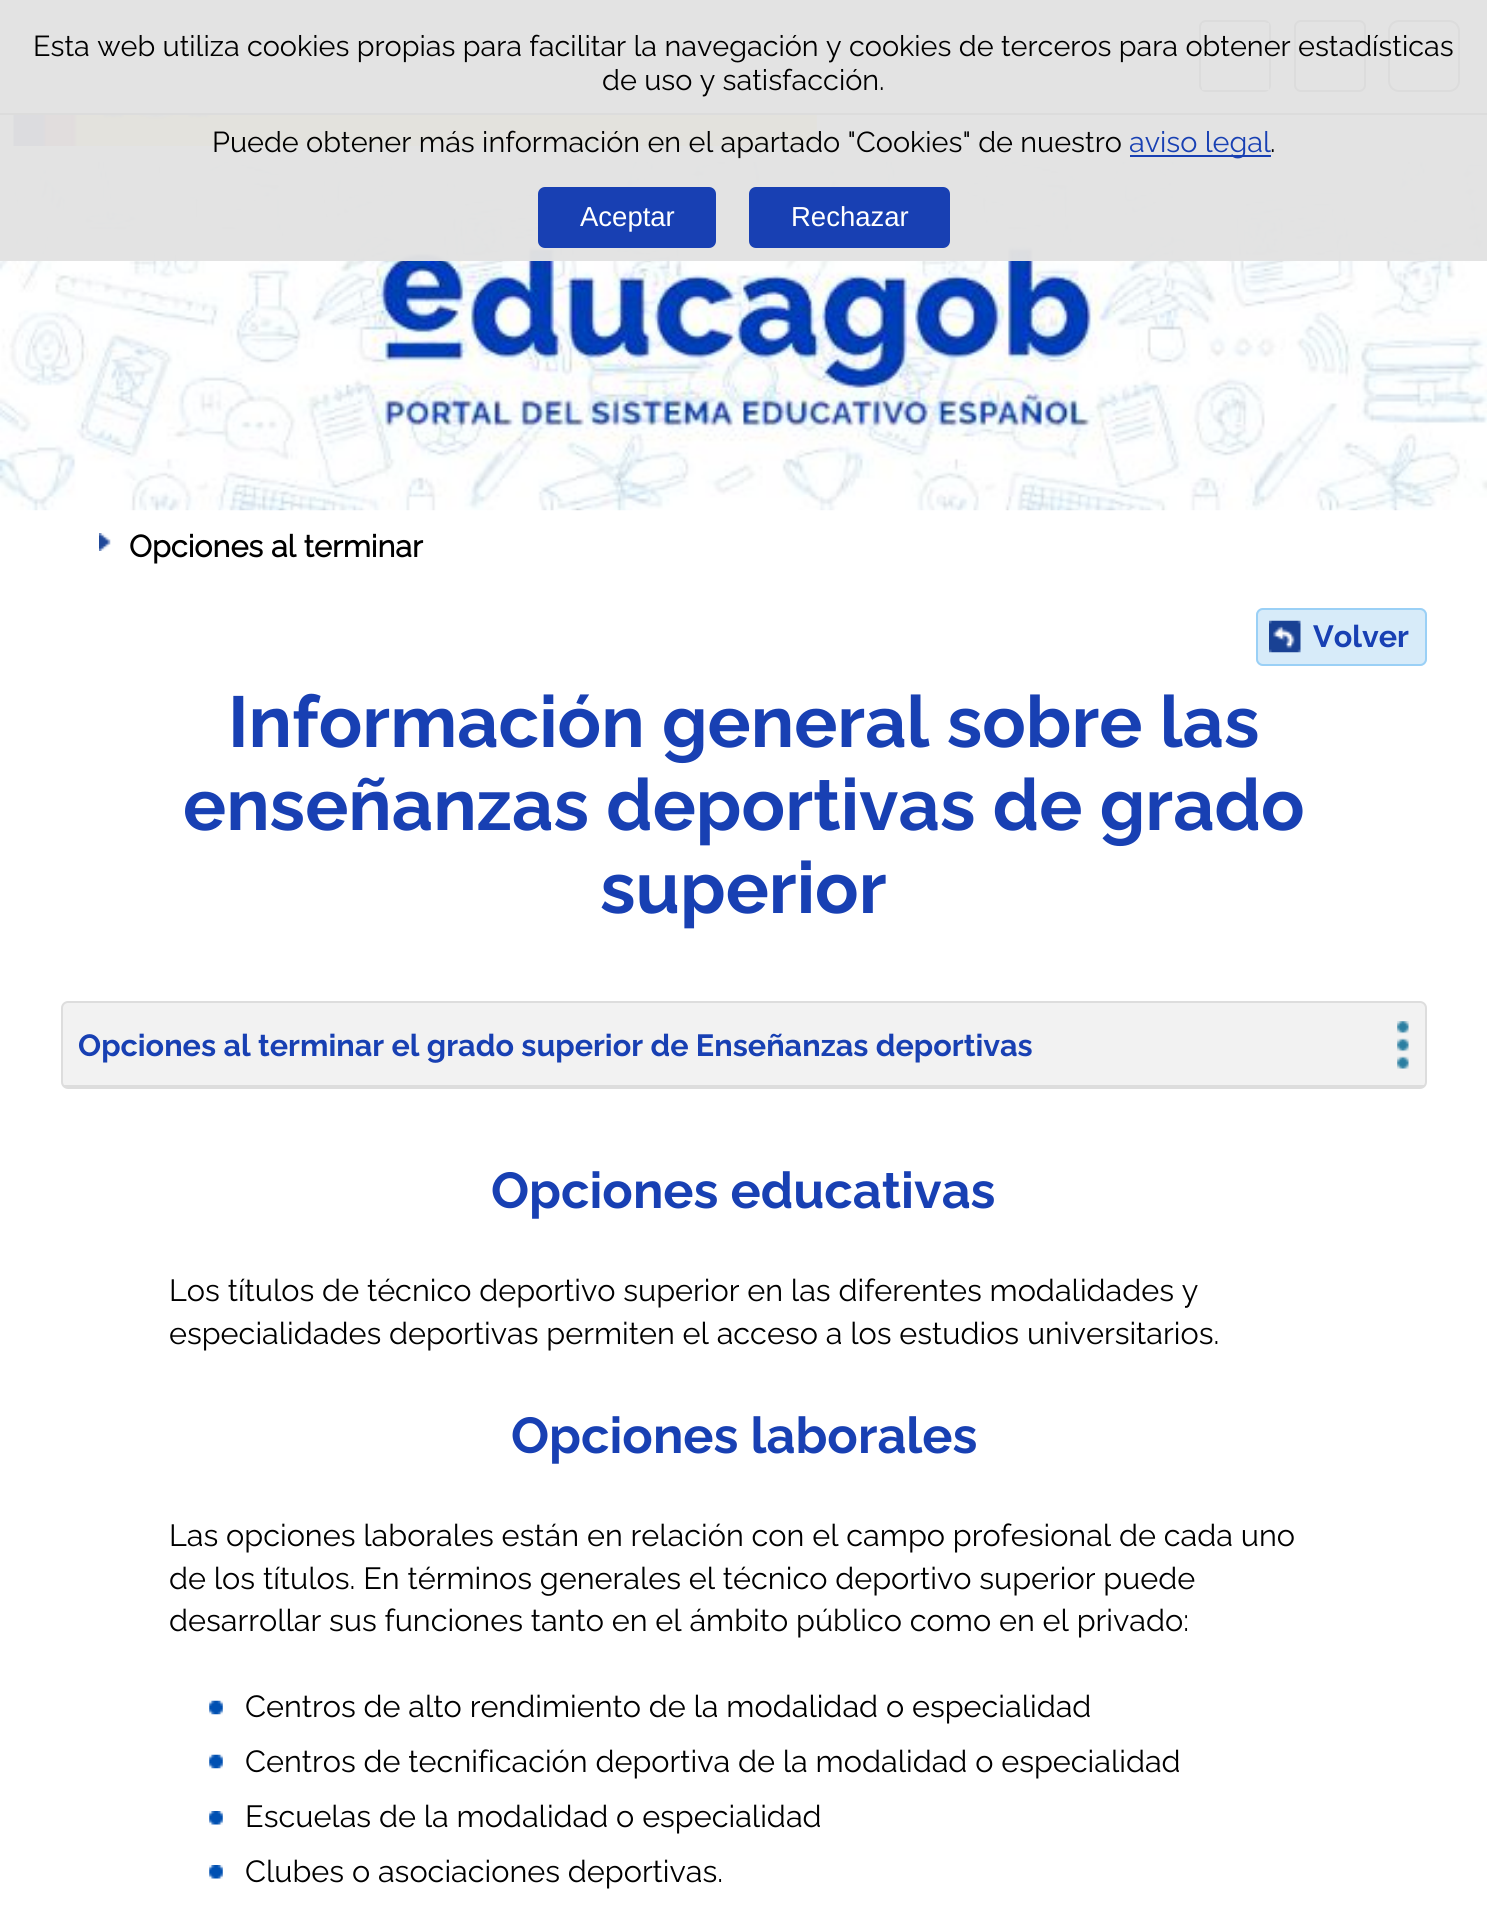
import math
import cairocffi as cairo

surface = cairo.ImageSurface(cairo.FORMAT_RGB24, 1487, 1919)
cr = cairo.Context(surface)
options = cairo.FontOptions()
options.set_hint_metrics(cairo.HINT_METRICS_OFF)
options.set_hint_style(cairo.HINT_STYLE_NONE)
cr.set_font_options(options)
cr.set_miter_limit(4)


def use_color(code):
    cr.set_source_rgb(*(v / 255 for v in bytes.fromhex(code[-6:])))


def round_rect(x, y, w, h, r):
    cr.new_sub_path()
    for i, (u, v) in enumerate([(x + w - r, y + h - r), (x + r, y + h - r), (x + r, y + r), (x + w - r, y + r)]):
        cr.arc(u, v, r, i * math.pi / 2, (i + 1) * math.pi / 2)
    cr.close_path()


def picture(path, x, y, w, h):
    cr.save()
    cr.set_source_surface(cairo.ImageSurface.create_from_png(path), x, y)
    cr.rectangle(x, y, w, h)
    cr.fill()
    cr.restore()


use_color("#ffffff")
cr.paint()
use_color("#000000")
cr.rectangle(0, 113, 1487, 2)
cr.fill()
round_rect(1200, 21, 70, 70, 6)
cr.stroke()
use_color("#ffffff")
cr.rectangle(1202, 23, 67, 67)
cr.fill()
round_rect(1295, 21, 70, 70, 6)
use_color("#000000")
cr.stroke()
round_rect(1389, 21, 70, 70, 10)
cr.stroke()
picture("img1.png", 13, 115, 804, 31)
picture("img2.png", 0, 161, 1487, 350)
cr.set_source_rgba(0.886, 0.886, 0.886, 0.97)
cr.rectangle(0, 0, 1487, 261)
cr.fill()
cr.select_font_face("Raleway")
cr.set_font_size(28.8)
use_color("#000000")
cr.move_to(33, 56)
cr.show_text("Esta web utiliza cookies propias para facilitar la navegación y cookies de terceros para obtener estadísticas")
cr.move_to(602, 90)
cr.show_text("de uso y satisfacción.")
cr.move_to(212, 152)
cr.show_text("Puede obtener más información en el apartado \"Cookies\" de nuestro")
use_color("#1840b3")
cr.rectangle(1130, 155, 141, 2)
cr.fill()
cr.move_to(1129, 152)
cr.show_text("aviso legal")
use_color("#000000")
cr.move_to(1270, 152)
cr.show_text(".")
use_color("#1840b3")
round_rect(538, 187, 178, 61, 7)
cr.fill()
cr.select_font_face("Liberation Sans")
cr.set_font_size(27.5)
use_color("#ffffff")
cr.move_to(580, 226)
cr.show_text("Aceptar")
use_color("#1840b3")
round_rect(749, 187, 201, 61, 7)
cr.fill()
use_color("#ffffff")
cr.move_to(791, 226)
cr.show_text("Rechazar")
picture("img3.png", 99, 533, 12, 18)
cr.select_font_face("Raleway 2", cairo.FONT_SLANT_NORMAL, cairo.FONT_WEIGHT_BOLD)
cr.set_font_size(30.6)
use_color("#000000")
cr.move_to(129, 557)
cr.show_text("Opciones al terminar")
use_color("#d7ebf9")
round_rect(1256, 608, 171, 58, 7)
cr.fill()
picture("img4.png", 1269, 620, 32, 33)
round_rect(1257, 609, 169, 56, 6)
use_color("#9ad0f6")
cr.stroke()
cr.select_font_face("Raleway", cairo.FONT_SLANT_NORMAL, cairo.FONT_WEIGHT_BOLD)
use_color("#1840b3")
cr.move_to(1313, 647)
cr.show_text("Volver")
cr.set_font_size(72)
cr.move_to(228, 747)
cr.show_text("Información general sobre las")
cr.move_to(183, 830)
cr.show_text("enseñanzas deportivas de grado")
cr.move_to(600, 913)
cr.show_text("superior")
use_color("#f2f2f2")
round_rect(62, 1002, 1364, 86, 6)
cr.fill_preserve()
use_color("#dddddd")
cr.stroke()
picture("img5.png", 1397, 1021, 12, 48)
cr.rectangle(63, 1085, 1361, 2)
cr.fill()
cr.set_font_size(30.6)
use_color("#1840b3")
cr.move_to(78, 1056)
cr.show_text("Opciones al terminar el grado superior de Enseñanzas deportivas")
cr.set_font_size(50.4)
cr.move_to(491, 1208)
cr.show_text("Opciones educativas")
cr.select_font_face("Raleway")
cr.set_font_size(30.6)
use_color("#000000")
cr.move_to(169, 1301)
cr.show_text("Los títulos de técnico deportivo superior en las diferentes modalidades y")
cr.move_to(169, 1344)
cr.show_text("especialidades deportivas permiten el acceso a los estudios universitarios.")
cr.select_font_face("Raleway", cairo.FONT_SLANT_NORMAL, cairo.FONT_WEIGHT_BOLD)
cr.set_font_size(50.4)
use_color("#1840b3")
cr.move_to(511, 1453)
cr.show_text("Opciones laborales")
cr.select_font_face("Raleway")
cr.set_font_size(30.6)
use_color("#000000")
cr.move_to(169, 1546)
cr.show_text("Las opciones laborales están en relación con el campo profesional de cada uno")
cr.move_to(169, 1589)
cr.show_text("de los títulos. En términos generales el técnico deportivo superior puede")
cr.move_to(169, 1631)
cr.show_text("desarrollar sus funciones tanto en el ámbito público como en el privado:")
picture("img6.png", 209, 1700, 14, 15)
cr.move_to(245, 1717)
cr.show_text("Centros de alto rendimiento de la modalidad o especialidad")
picture("img6.png", 209, 1754, 14, 15)
cr.move_to(245, 1772)
cr.show_text("Centros de tecnificación deportiva de la modalidad o especialidad")
picture("img7.png", 209, 1811, 14, 14)
cr.move_to(245, 1827)
cr.show_text("Escuelas de la modalidad o especialidad")
picture("img7.png", 209, 1865, 14, 14)
cr.move_to(245, 1882)
cr.show_text("Clubes o asociaciones deportivas.")
surface.write_to_png("result.png")
